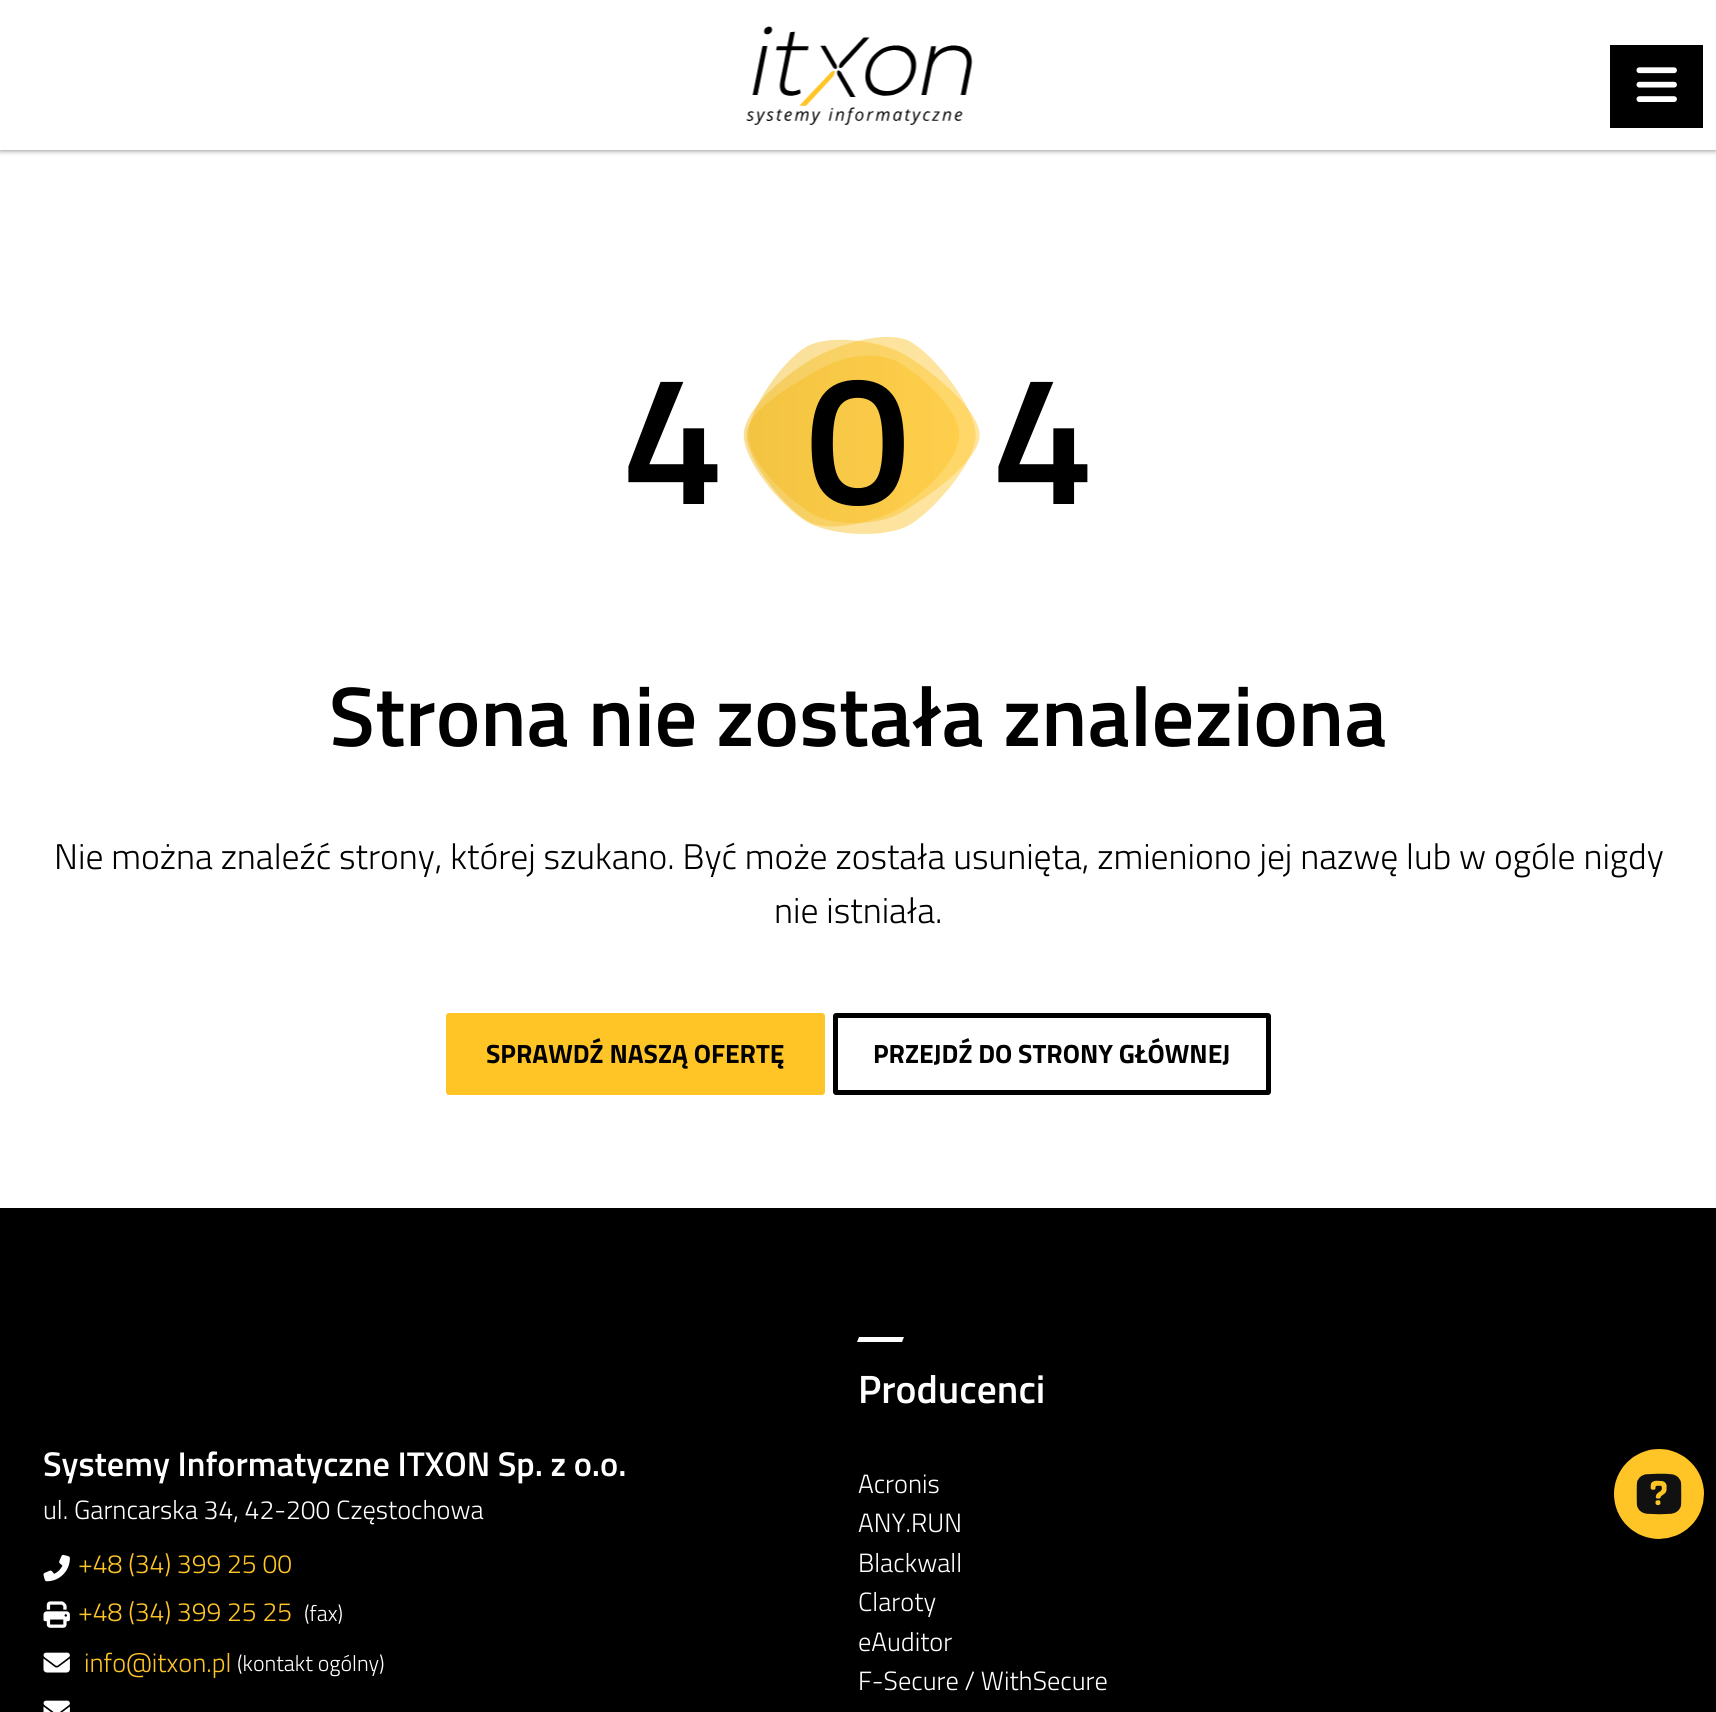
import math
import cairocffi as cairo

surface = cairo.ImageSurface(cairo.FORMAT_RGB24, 1716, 1712)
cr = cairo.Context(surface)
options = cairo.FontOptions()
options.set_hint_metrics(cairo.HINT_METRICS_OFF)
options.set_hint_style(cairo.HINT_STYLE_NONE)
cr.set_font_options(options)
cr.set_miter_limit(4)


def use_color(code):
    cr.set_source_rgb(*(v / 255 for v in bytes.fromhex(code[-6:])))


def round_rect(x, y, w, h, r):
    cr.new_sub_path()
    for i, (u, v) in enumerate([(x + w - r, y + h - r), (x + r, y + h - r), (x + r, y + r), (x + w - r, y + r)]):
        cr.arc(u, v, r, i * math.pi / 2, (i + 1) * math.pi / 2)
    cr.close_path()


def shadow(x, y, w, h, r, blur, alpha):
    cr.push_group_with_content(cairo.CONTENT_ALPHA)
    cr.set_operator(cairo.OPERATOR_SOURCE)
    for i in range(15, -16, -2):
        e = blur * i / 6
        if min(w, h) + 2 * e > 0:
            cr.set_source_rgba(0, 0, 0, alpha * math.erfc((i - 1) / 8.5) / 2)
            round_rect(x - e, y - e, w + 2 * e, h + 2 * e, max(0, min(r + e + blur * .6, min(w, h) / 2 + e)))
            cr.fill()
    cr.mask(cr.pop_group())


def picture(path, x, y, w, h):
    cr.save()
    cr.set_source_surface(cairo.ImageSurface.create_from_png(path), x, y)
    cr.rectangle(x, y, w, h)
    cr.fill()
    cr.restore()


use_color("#ffffff")
cr.paint()
cr.save()
cr.rectangle(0, 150, 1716, 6)
cr.clip()
use_color("#777777")
shadow(0, 0, 1716, 150, 0, 3, 1)
cr.restore()
picture("img1.png", 746, 26, 227, 99)
use_color("#000000")
cr.rectangle(1610, 45, 93, 83)
cr.fill()
picture("img2.png", 1636, 67, 41, 35)
picture("img3.png", 743, 336, 237, 198)
cr.select_font_face("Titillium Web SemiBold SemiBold")
cr.set_font_size(185)
cr.move_to(621, 504)
cr.show_text("4  0  4")
cr.set_font_size(84.5)
cr.move_to(329, 746)
cr.show_text("Strona nie została znaleziona")
cr.select_font_face("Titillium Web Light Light")
cr.set_font_size(35.65)
cr.move_to(54, 869)
cr.show_text("Nie można znaleźć strony, której szukano. Być może została usunięta, zmieniono jej nazwę lub w ogóle nigdy")
cr.move_to(774, 923)
cr.show_text("nie istniała.")
use_color("#ffc526")
round_rect(448.5, 1015.5, 374, 77, 0.5)
cr.fill_preserve()
cr.set_line_width(5)
cr.stroke()
cr.select_font_face("Titillium Web", cairo.FONT_SLANT_NORMAL, cairo.FONT_WEIGHT_BOLD)
cr.set_font_size(26.4)
use_color("#000000")
cr.move_to(486, 1063)
cr.show_text("SPRAWDŹ NASZĄ OFERTĘ")
round_rect(835.5, 1015.5, 433, 77, 0.5)
cr.stroke()
cr.move_to(873, 1063)
cr.show_text("PRZEJDŹ DO STRONY GŁÓWNEJ")
cr.rectangle(0, 1208, 1716, 504)
cr.fill()
cr.select_font_face("Titillium Web SemiBold SemiBold")
cr.set_font_size(34.3)
use_color("#ffffff")
cr.move_to(43, 1476)
cr.show_text("Systemy Informatyczne ITXON Sp. z o.o.")
cr.select_font_face("Titillium Web Light Light")
cr.set_font_size(26.4)
cr.move_to(43, 1519)
cr.show_text("ul. Garncarska 34, 42-200 Częstochowa")
picture("img4.png", 43, 1554, 27, 28)
use_color("#ffc526")
cr.move_to(78, 1573)
cr.show_text("+48 (34) 399 25 00")
picture("img5.png", 43, 1601, 27, 27)
cr.move_to(78, 1621)
cr.show_text("+48 (34) 399 25 25")
cr.set_font_size(22)
use_color("#ffffff")
cr.move_to(304, 1621)
cr.show_text("(fax)")
picture("img6.png", 43, 1652, 27, 21)
cr.set_font_size(26.4)
use_color("#ffc526")
cr.move_to(84, 1672)
cr.show_text("info@itxon.pl")
cr.set_font_size(22)
use_color("#ffffff")
cr.move_to(237, 1671)
cr.show_text("(kontakt ogólny)")
picture("img7.png", 43, 1700, 27, 12)
cr.new_path()
cr.move_to(859, 1337)
cr.line_to(904, 1337)
cr.line_to(902, 1342)
cr.line_to(857, 1342)
cr.close_path()
cr.fill()
cr.select_font_face("Titillium Web SemiBold SemiBold")
cr.set_font_size(39.5)
cr.move_to(858, 1403)
cr.show_text("Producenci")
cr.select_font_face("Titillium Web Light Light")
cr.set_font_size(26.4)
cr.move_to(858, 1493)
cr.show_text("Acronis")
cr.move_to(858, 1532)
cr.show_text("ANY.RUN")
cr.move_to(858, 1572)
cr.show_text("Blackwall")
cr.move_to(858, 1611)
cr.show_text("Claroty")
cr.move_to(858, 1651)
cr.show_text("eAuditor")
cr.move_to(858, 1690)
cr.show_text("F-Secure / WithSecure")
picture("img8.png", 1614, 1449, 90, 90)
surface.write_to_png("result.png")
